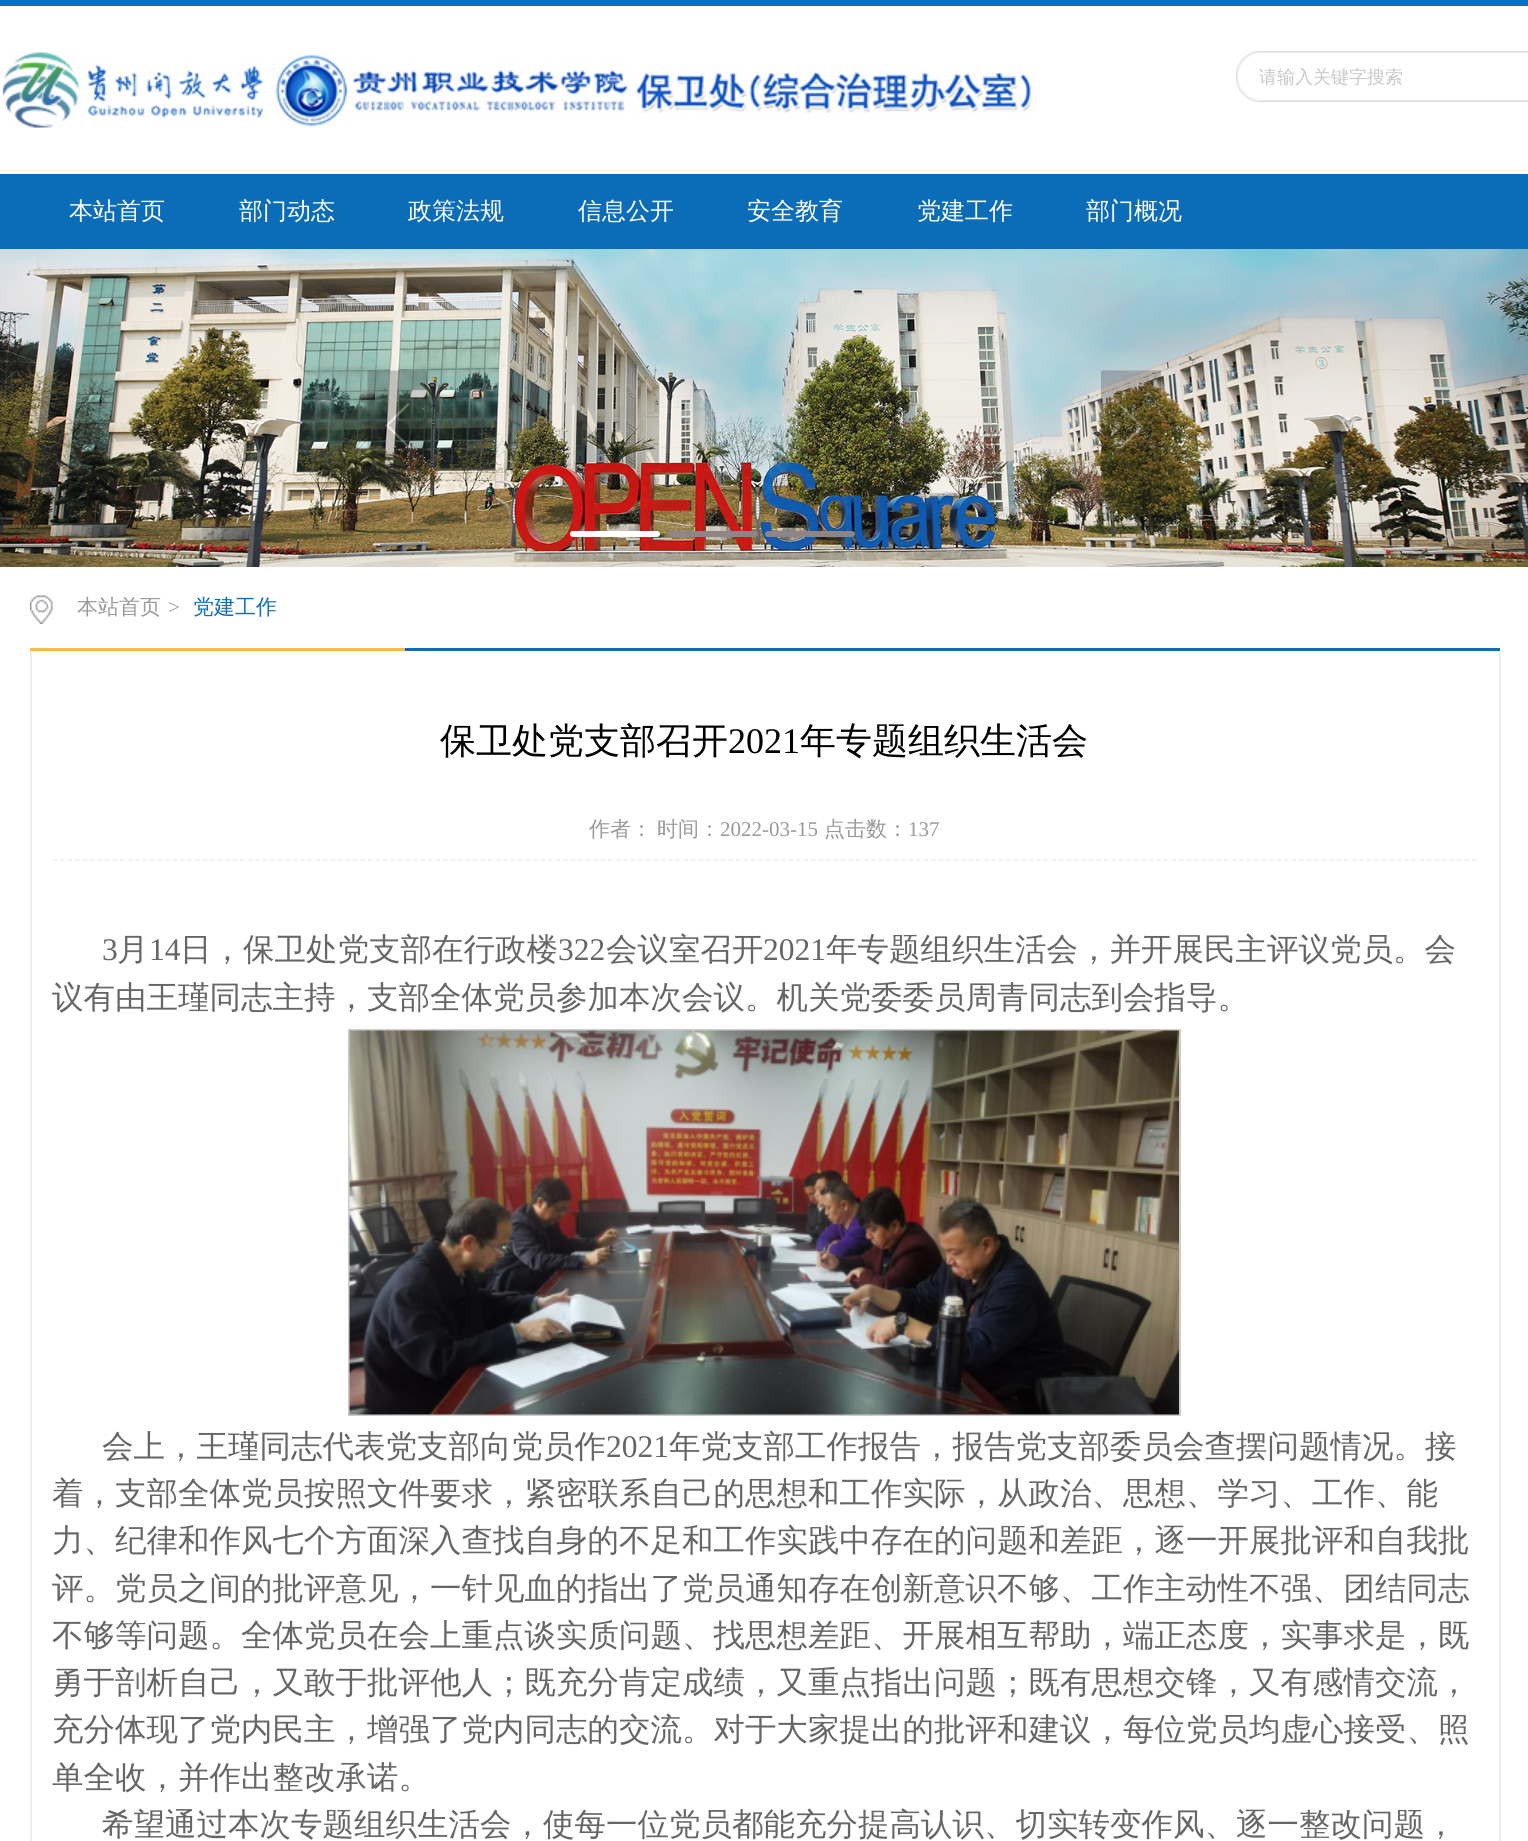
import math
import cairocffi as cairo

surface = cairo.ImageSurface(cairo.FORMAT_RGB24, 1528, 1841)
cr = cairo.Context(surface)
options = cairo.FontOptions()
options.set_hint_metrics(cairo.HINT_METRICS_OFF)
options.set_hint_style(cairo.HINT_STYLE_NONE)
cr.set_font_options(options)
cr.set_miter_limit(4)


def use_color(code):
    cr.set_source_rgb(*(v / 255 for v in bytes.fromhex(code[-6:])))


def round_rect(x, y, w, h, r):
    cr.new_sub_path()
    for i, (u, v) in enumerate([(x + w - r, y + h - r), (x + r, y + h - r), (x + r, y + r), (x + w - r, y + r)]):
        cr.arc(u, v, r, i * math.pi / 2, (i + 1) * math.pi / 2)
    cr.close_path()


def picture(path, x, y, w, h):
    cr.save()
    cr.set_source_surface(cairo.ImageSurface.create_from_png(path), x, y)
    cr.rectangle(x, y, w, h)
    cr.fill()
    cr.restore()


use_color("#ffffff")
cr.paint()
use_color("#0d6db9")
cr.rectangle(0, 0, 1528, 6)
cr.fill()
picture("img1.png", 2, 52, 1031, 77)
picture("img2.png", 1236, 51, 292, 51)
cr.select_font_face("WenQuanYi Zen Hei Medium")
cr.set_font_size(18)
use_color("#c8c8c8")
cr.move_to(1259, 83)
cr.show_text("请输入关键字搜索")
use_color("#0b6cb8")
cr.rectangle(0, 174, 1528, 75)
cr.fill()
cr.set_font_size(24)
use_color("#ffffff")
cr.move_to(69, 219)
cr.show_text("本站首页")
cr.move_to(239, 219)
cr.show_text("部门动态")
cr.move_to(408, 219)
cr.show_text("政策法规")
cr.move_to(578, 219)
cr.show_text("信息公开")
cr.move_to(747, 219)
cr.show_text("安全教育")
cr.move_to(917, 219)
cr.show_text("党建工作")
cr.move_to(1086, 219)
cr.show_text("部门概况")
picture("img3.png", 0, 249, 1528, 318)
picture("img4.png", 367, 370, 61, 112)
picture("img5.png", 1101, 370, 60, 112)
round_rect(570, 531, 90, 6, 3)
cr.fill()
use_color("#8f8586")
round_rect(668, 531, 90, 6, 3)
cr.fill()
round_rect(765, 531, 90, 6, 3)
cr.fill()
use_color("#0b6cb8")
cr.rectangle(405, 648, 1095, 3)
cr.fill()
use_color("#ffb64d")
cr.rectangle(30, 648, 375, 3)
cr.fill()
picture("img6.png", 30, 595, 23, 29)
cr.set_font_size(21)
use_color("#999999")
cr.move_to(77, 614)
cr.show_text("本站首页")
cr.select_font_face("Liberation Serif")
cr.move_to(168, 614)
cr.show_text(">")
cr.select_font_face("WenQuanYi Zen Hei Medium")
use_color("#0b6cb8")
cr.move_to(193, 614)
cr.show_text("党建工作")
use_color("#eeeeee")
cr.rectangle(1499, 651, 2, 1190)
cr.fill()
cr.rectangle(30, 651, 2, 1190)
cr.fill()
cr.new_path()
cr.move_to(52.5, 860)
cr.line_to(1477.5, 860)
cr.set_line_width(1.5)
cr.set_dash([4.5, 3.01])
cr.stroke()
cr.set_font_size(36)
use_color("#000000")
cr.move_to(440, 753)
cr.show_text("保卫处党支部召开")
cr.select_font_face("Liberation Serif")
cr.move_to(728, 753)
cr.show_text("2021")
cr.select_font_face("WenQuanYi Zen Hei Medium")
cr.move_to(800, 753)
cr.show_text("年专题组织生活会")
cr.set_font_size(21)
use_color("#999999")
cr.move_to(589, 836)
cr.show_text("作者：")
cr.move_to(657, 836)
cr.show_text("时间：")
cr.select_font_face("Liberation Serif")
cr.move_to(720, 836)
cr.show_text("2022-03-15")
cr.select_font_face("WenQuanYi Zen Hei Medium")
cr.move_to(824, 836)
cr.show_text("点击数：")
cr.select_font_face("Liberation Serif")
cr.move_to(908, 836)
cr.show_text("137")
cr.set_font_size(31.5)
use_color("#666666")
cr.move_to(102, 960)
cr.show_text("3")
cr.select_font_face("WenQuanYi Zen Hei Medium")
cr.move_to(117, 960)
cr.show_text("月")
cr.select_font_face("Liberation Serif")
cr.move_to(149, 960)
cr.show_text("14")
cr.select_font_face("WenQuanYi Zen Hei Medium")
cr.move_to(180, 960)
cr.show_text("日，保卫处党支部在行政楼")
cr.select_font_face("Liberation Serif")
cr.move_to(558, 960)
cr.show_text("322")
cr.select_font_face("WenQuanYi Zen Hei Medium")
cr.move_to(606, 960)
cr.show_text("会议室召开")
cr.select_font_face("Liberation Serif")
cr.move_to(763, 960)
cr.show_text("2021")
cr.select_font_face("WenQuanYi Zen Hei Medium")
cr.move_to(826, 960)
cr.show_text("年专题组织生活会，并开展民主评议党员。会")
cr.move_to(52, 1008)
cr.show_text("议有由王瑾同志主持，支部全体党员参加本次会议。机关党委委员周青同志到会指导。")
cr.rectangle(349, 1030, 831, 385)
use_color("#cccccc")
cr.set_line_width(2)
cr.set_dash([])
cr.stroke()
picture("img7.png", 349, 1030, 830, 385)
use_color("#666666")
cr.move_to(102, 1457)
cr.show_text("会上，王瑾同志代表党支部向党员作")
cr.select_font_face("Liberation Serif")
cr.move_to(606, 1457)
cr.show_text("2021")
cr.select_font_face("WenQuanYi Zen Hei Medium")
cr.move_to(669, 1457)
cr.show_text("年党支部工作报告，报告党支部委员会查摆问题情况。接")
cr.move_to(52, 1504)
cr.show_text("着，支部全体党员按照文件要求，紧密联系自己的思想和工作实际，从政治、思想、学习、工作、能")
cr.move_to(52, 1551)
cr.show_text("力、纪律和作风七个方面深入查找自身的不足和工作实践中存在的问题和差距，逐一开展批评和自我批")
cr.move_to(52, 1599)
cr.show_text("评。党员之间的批评意见，一针见血的指出了党员通知存在创新意识不够、工作主动性不强、团结同志")
cr.move_to(52, 1646)
cr.show_text("不够等问题。全体党员在会上重点谈实质问题、找思想差距、开展相互帮助，端正态度，实事求是，既")
cr.move_to(52, 1693)
cr.show_text("勇于剖析自己，又敢于批评他人；既充分肯定成绩，又重点指出问题；既有思想交锋，又有感情交流，")
cr.move_to(52, 1740)
cr.show_text("充分体现了党内民主，增强了党内同志的交流。对于大家提出的批评和建议，每位党员均虚心接受、照")
cr.move_to(52, 1788)
cr.show_text("单全收，并作出整改承诺。")
cr.move_to(102, 1835)
cr.show_text("希望通过本次专题组织生活会，使每一位党员都能充分提高认识、切实转变作风、逐一整改问题，")
surface.write_to_png("result.png")
